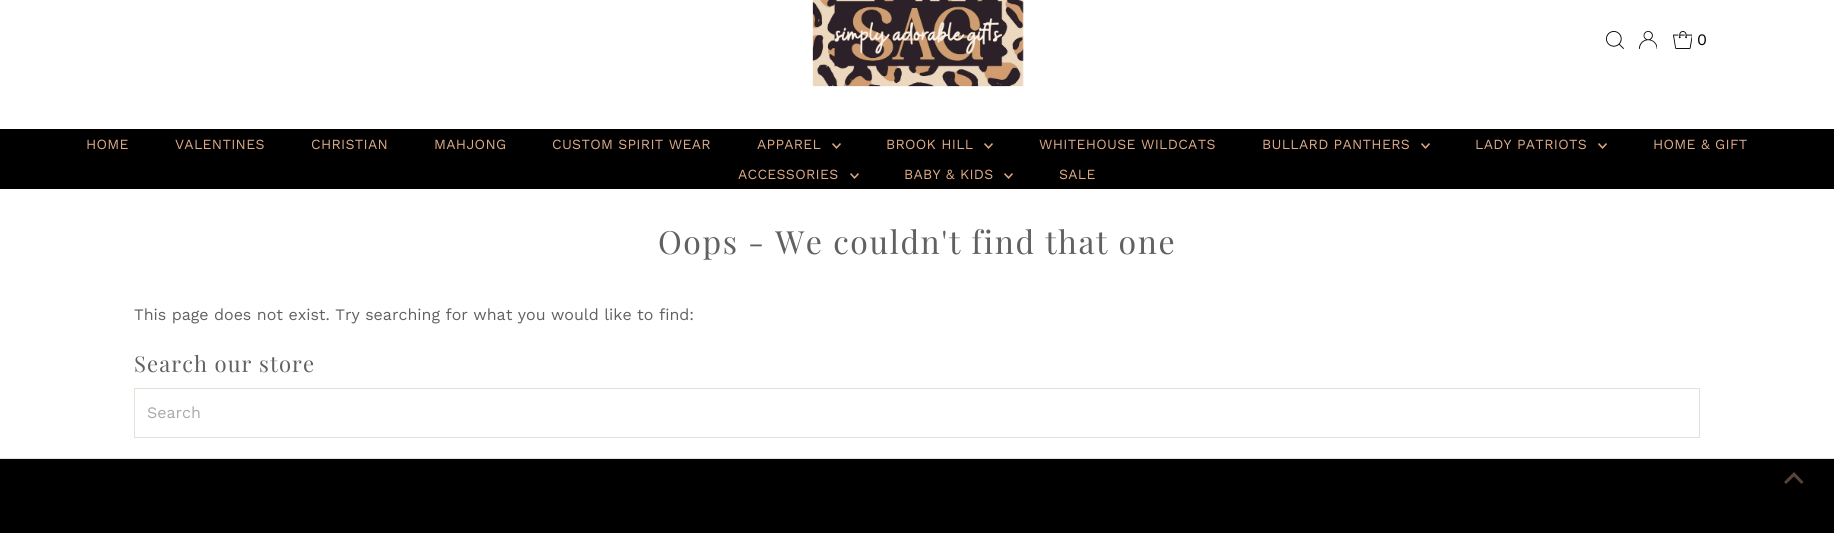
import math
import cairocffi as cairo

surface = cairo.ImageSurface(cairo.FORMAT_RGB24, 1834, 533)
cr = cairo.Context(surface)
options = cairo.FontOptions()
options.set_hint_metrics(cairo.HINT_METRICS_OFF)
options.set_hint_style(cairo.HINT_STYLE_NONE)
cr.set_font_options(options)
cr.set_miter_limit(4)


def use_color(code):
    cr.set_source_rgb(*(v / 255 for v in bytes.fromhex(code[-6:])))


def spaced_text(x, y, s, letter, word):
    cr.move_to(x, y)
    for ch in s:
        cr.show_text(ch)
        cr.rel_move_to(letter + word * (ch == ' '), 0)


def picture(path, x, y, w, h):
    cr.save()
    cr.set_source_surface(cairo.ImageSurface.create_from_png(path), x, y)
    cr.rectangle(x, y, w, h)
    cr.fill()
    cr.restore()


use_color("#ffffff")
cr.paint()
picture("img1.png", 812, 0, 212, 87)
picture("img2.png", 1606, 31, 18, 18)
picture("img3.png", 1639, 31, 18, 18)
picture("img4.png", 1673, 31, 19, 18)
cr.select_font_face("Work Sans")
cr.set_font_size(16)
use_color("#000000")
cr.move_to(1697, 45)
cr.show_text("0")
cr.rectangle(0, 129, 1834, 60)
cr.fill()
cr.set_font_size(14)
use_color("#ddab87")
spaced_text(86, 149, "HOME", 0.3, 0)
spaced_text(175, 149, "VALENTINES", 0.3, 0)
spaced_text(311, 149, "CHRISTIAN", 0.3, 0)
spaced_text(434, 149, "MAHJONG", 0.3, 0)
spaced_text(552, 149, "CUSTOM SPIRIT WEAR", 0.3, 0)
spaced_text(757, 149, "APPAREL", 0.3, 0)
picture("img5.png", 832, 143, 9, 6)
spaced_text(886, 149, "BROOK HILL", 0.3, 0)
picture("img5.png", 984, 143, 9, 6)
spaced_text(1039, 149, "WHITEHOUSE WILDCATS", 0.3, 0)
spaced_text(1262, 149, "BULLARD PANTHERS", 0.3, 0)
picture("img5.png", 1421, 143, 9, 6)
spaced_text(1475, 149, "LADY PATRIOTS", 0.3, 0)
picture("img5.png", 1598, 143, 9, 6)
spaced_text(1653, 149, "HOME & GIFT", 0.3, 0)
spaced_text(738, 179, "ACCESSORIES", 0.3, 0)
picture("img5.png", 850, 173, 9, 6)
spaced_text(904, 179, "BABY & KIDS", 0.3, 0)
picture("img5.png", 1004, 173, 9, 6)
spaced_text(1059, 179, "SALE", 0.3, 0)
cr.select_font_face("Playfair Display")
cr.set_font_size(32)
use_color("#616161")
spaced_text(658, 254, "Oops - We couldn't find that one", 1.6, 0)
cr.select_font_face("Work Sans")
cr.set_font_size(16)
cr.move_to(134, 320)
cr.show_text("This page does not exist. Try searching for what you would like to find:")
cr.select_font_face("Playfair Display")
cr.set_font_size(22)
spaced_text(134, 372, "Search our store", 1.1, 0)
cr.rectangle(134.5, 388.5, 1565, 49)
use_color("#e6e0d7")
cr.set_line_width(1)
cr.stroke()
cr.select_font_face("Work Sans")
cr.set_font_size(16)
use_color("#aaaaaa")
cr.move_to(147, 418)
cr.show_text("Search")
use_color("#000000")
cr.rectangle(0, 459, 1834, 74)
cr.fill()
use_color("#e6e0d7")
cr.rectangle(0, 458, 1834, 1)
cr.fill()
use_color("#584436")
cr.new_path()
cr.move_to(1794, 472)
cr.line_to(1784, 482)
cr.line_to(1786, 484)
cr.line_to(1794, 476.5)
cr.line_to(1801.5, 484)
cr.line_to(1803.5, 482)
cr.close_path()
cr.fill()
surface.write_to_png("result.png")
